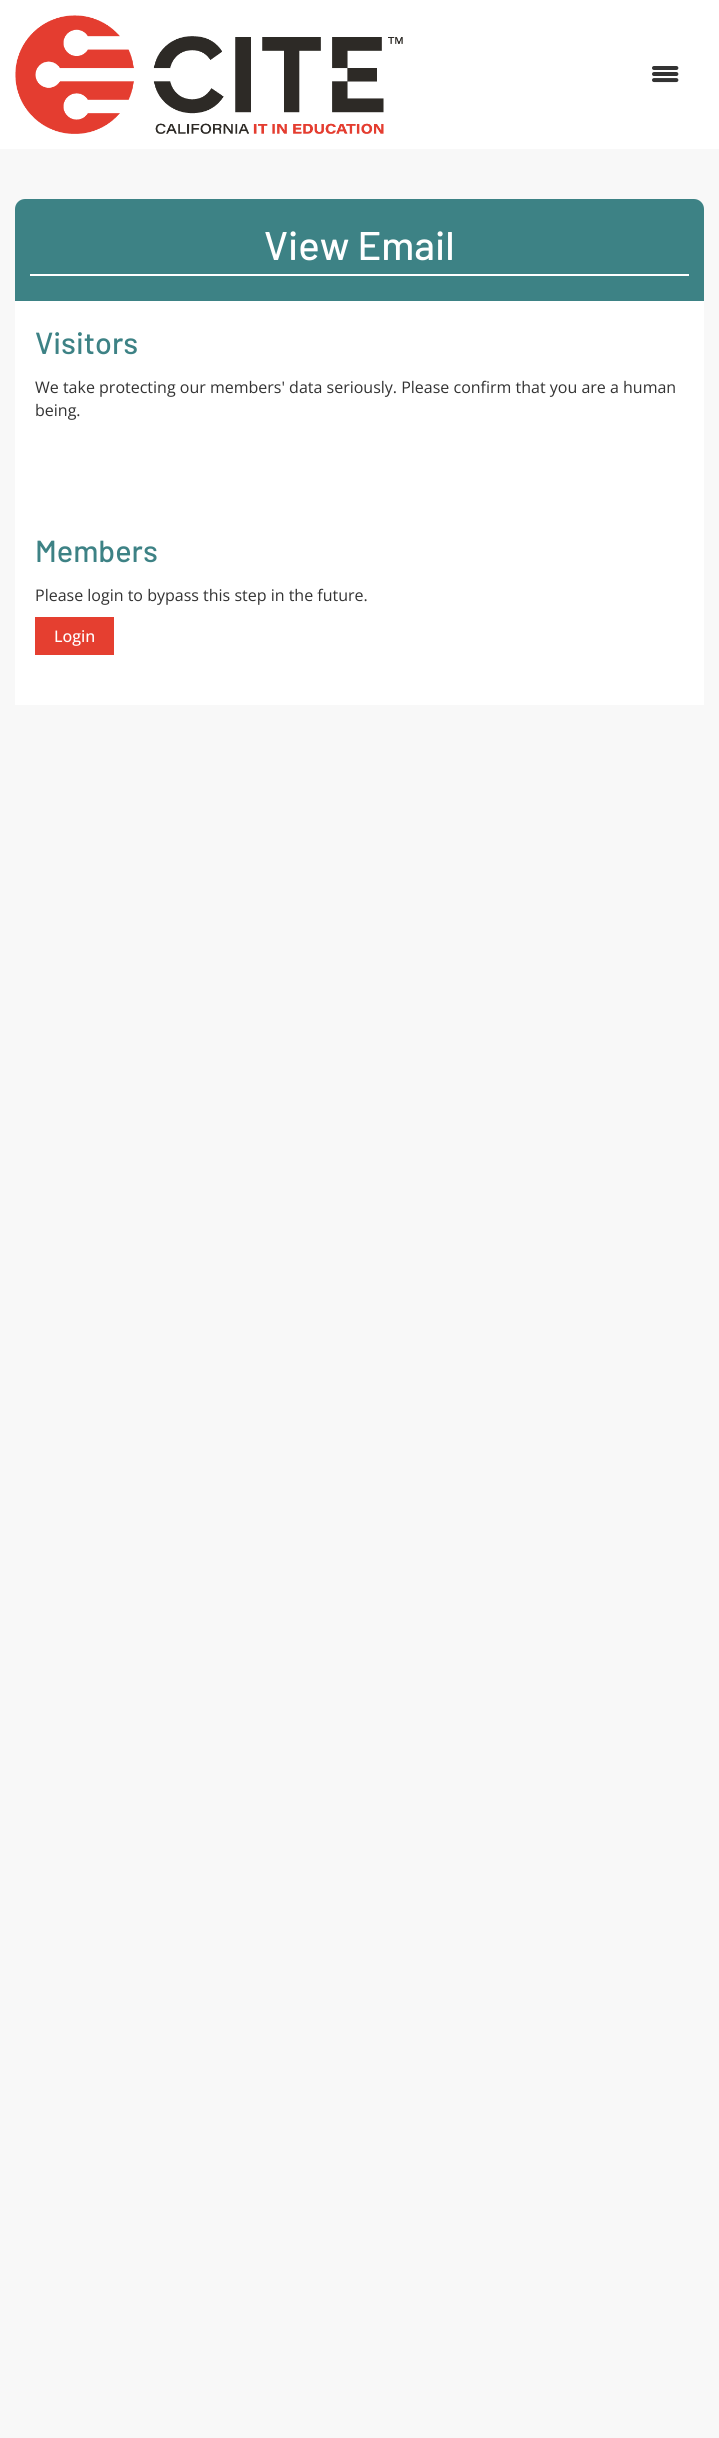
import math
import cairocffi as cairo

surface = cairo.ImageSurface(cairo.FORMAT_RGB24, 719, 2438)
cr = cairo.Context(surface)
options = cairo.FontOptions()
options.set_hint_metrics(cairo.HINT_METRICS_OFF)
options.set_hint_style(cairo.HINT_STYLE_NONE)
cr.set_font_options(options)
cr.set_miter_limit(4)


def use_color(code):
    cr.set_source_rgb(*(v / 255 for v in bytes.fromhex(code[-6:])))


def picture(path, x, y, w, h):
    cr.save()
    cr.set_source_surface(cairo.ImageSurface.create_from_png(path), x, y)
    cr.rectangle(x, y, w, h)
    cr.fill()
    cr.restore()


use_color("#f8f8f8")
cr.paint()
use_color("#ffffff")
cr.rectangle(0, 0, 719, 149)
cr.fill()
picture("img1.png", 15, 15, 388, 119)
picture("img2.png", 652, 66, 27, 17)
use_color("#3d8285")
cr.new_path()
cr.move_to(25, 199)
cr.line_to(694, 199)
cr.curve_to(699.5, 199, 704, 203.5, 704, 209)
cr.line_to(704, 301)
cr.line_to(15, 301)
cr.line_to(15, 209)
cr.curve_to(15, 203.5, 19.5, 199, 25, 199)
cr.close_path()
cr.fill()
use_color("#ffffff")
cr.rectangle(30, 274, 659, 2)
cr.fill()
cr.select_font_face("Barlow Medium")
cr.set_font_size(40)
cr.move_to(264, 260)
cr.show_text("View Email")
cr.rectangle(15, 301, 689, 404)
cr.fill()
cr.set_font_size(30.5)
use_color("#3d8285")
cr.move_to(35, 354)
cr.show_text("Visitors")
cr.select_font_face("Open Sans")
cr.set_font_size(16)
use_color("#333333")
cr.move_to(35, 393)
cr.show_text("We take protecting our members' data seriously. Please confirm that you are a human")
cr.move_to(35, 416)
cr.show_text("being.")
cr.select_font_face("Barlow Medium")
cr.set_font_size(30.5)
use_color("#3d8285")
cr.move_to(35, 562)
cr.show_text("Members")
cr.select_font_face("Open Sans")
cr.set_font_size(16)
use_color("#333333")
cr.move_to(35, 601)
cr.show_text("Please login to bypass this step in the future.")
use_color("#e53f30")
cr.rectangle(35, 617, 79, 38)
cr.fill()
cr.select_font_face("Open Sans Medium")
use_color("#ffffff")
cr.move_to(54, 642)
cr.show_text("Login")
surface.write_to_png("result.png")
